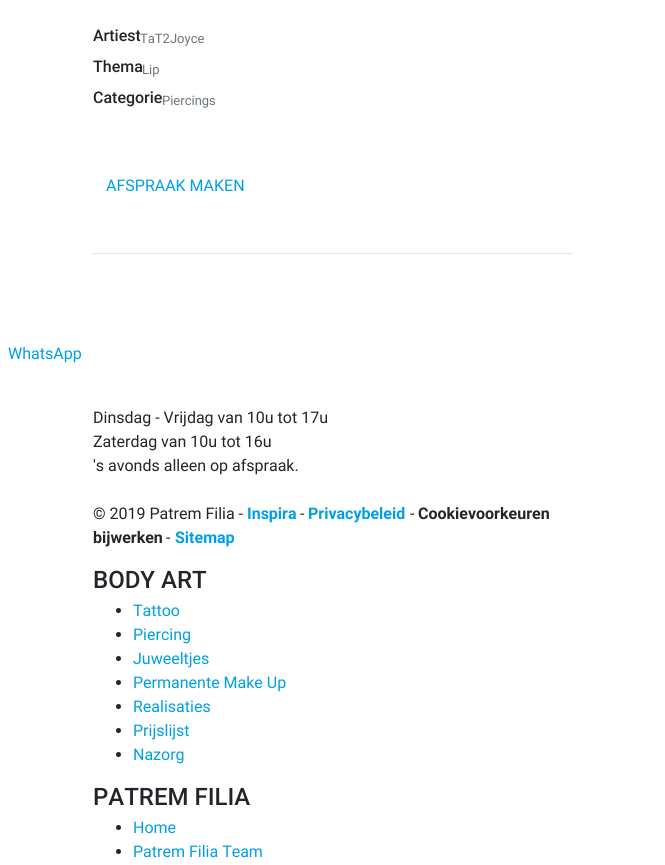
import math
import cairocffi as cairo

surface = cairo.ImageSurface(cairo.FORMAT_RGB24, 665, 865)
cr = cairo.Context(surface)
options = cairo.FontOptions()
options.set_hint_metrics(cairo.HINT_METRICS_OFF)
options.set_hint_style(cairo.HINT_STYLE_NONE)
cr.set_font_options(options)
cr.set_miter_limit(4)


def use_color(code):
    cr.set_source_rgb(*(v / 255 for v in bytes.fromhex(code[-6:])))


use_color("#ffffff")
cr.paint()
cr.select_font_face("Roboto Medium")
cr.set_font_size(16)
use_color("#212529")
cr.move_to(93, 41)
cr.show_text("Artiest")
cr.select_font_face("Roboto")
cr.set_font_size(13)
use_color("#6c757d")
cr.move_to(140, 43)
cr.show_text("TaT2Joyce")
cr.select_font_face("Roboto Medium")
cr.set_font_size(16)
use_color("#212529")
cr.move_to(93, 72)
cr.show_text("Thema")
cr.select_font_face("Roboto")
cr.set_font_size(13)
use_color("#6c757d")
cr.move_to(142, 74)
cr.show_text("Lip")
cr.select_font_face("Roboto Medium")
cr.set_font_size(16)
use_color("#212529")
cr.move_to(93, 103)
cr.show_text("Categorie")
cr.select_font_face("Roboto")
cr.set_font_size(13)
use_color("#6c757d")
cr.move_to(162, 105)
cr.show_text("Piercings")
cr.set_font_size(16)
use_color("#009fe3")
cr.move_to(106, 191)
cr.show_text("AFSPRAAK MAKEN")
use_color("#e6e6e6")
cr.rectangle(93, 253, 480, 1)
cr.fill()
use_color("#009fe3")
cr.move_to(8, 359)
cr.show_text("WhatsApp")
use_color("#212529")
cr.move_to(93, 423)
cr.show_text("Dinsdag - Vrijdag van 10u tot 17u")
cr.move_to(93, 447)
cr.show_text("Zaterdag van 10u tot 16u")
cr.move_to(93, 471)
cr.show_text("'s avonds alleen op afspraak.")
cr.move_to(93, 519)
cr.show_text("© 2019 Patrem Filia -")
cr.select_font_face("Roboto", cairo.FONT_SLANT_NORMAL, cairo.FONT_WEIGHT_BOLD)
use_color("#009fe3")
cr.move_to(247, 519)
cr.show_text("Inspira")
cr.select_font_face("Roboto")
use_color("#212529")
cr.move_to(300, 519)
cr.show_text("-")
cr.select_font_face("Roboto", cairo.FONT_SLANT_NORMAL, cairo.FONT_WEIGHT_BOLD)
use_color("#009fe3")
cr.move_to(308, 519)
cr.show_text("Privacybeleid")
cr.select_font_face("Roboto")
use_color("#212529")
cr.move_to(410, 519)
cr.show_text("-")
cr.select_font_face("Roboto", cairo.FONT_SLANT_NORMAL, cairo.FONT_WEIGHT_BOLD)
cr.move_to(418, 519)
cr.show_text("Cookievoorkeuren")
cr.move_to(93, 543)
cr.show_text("bijwerken")
cr.select_font_face("Roboto")
cr.move_to(166, 543)
cr.show_text("-")
cr.select_font_face("Roboto", cairo.FONT_SLANT_NORMAL, cairo.FONT_WEIGHT_BOLD)
use_color("#009fe3")
cr.move_to(175, 543)
cr.show_text("Sitemap")
cr.select_font_face("Roboto Medium")
cr.set_font_size(24)
use_color("#212529")
cr.move_to(93, 588)
cr.show_text("BODY ART")
cr.new_path()
cr.arc(118.5, 610.5, 2.5, 0, 2 * math.pi)
cr.fill()
cr.select_font_face("Roboto")
cr.set_font_size(16)
use_color("#009fe3")
cr.move_to(133, 616)
cr.show_text("Tattoo")
use_color("#212529")
cr.new_path()
cr.arc(118.5, 634.5, 2.5, 0, 2 * math.pi)
cr.fill()
use_color("#009fe3")
cr.move_to(133, 640)
cr.show_text("Piercing")
use_color("#212529")
cr.new_path()
cr.arc(118.5, 658.5, 2.5, 0, 2 * math.pi)
cr.fill()
use_color("#009fe3")
cr.move_to(133, 664)
cr.show_text("Juweeltjes")
use_color("#212529")
cr.new_path()
cr.arc(118.5, 682.5, 2.5, 0, 2 * math.pi)
cr.fill()
use_color("#009fe3")
cr.move_to(133, 688)
cr.show_text("Permanente Make Up")
use_color("#212529")
cr.new_path()
cr.arc(118.5, 706.5, 2.5, 0, 2 * math.pi)
cr.fill()
use_color("#009fe3")
cr.move_to(133, 712)
cr.show_text("Realisaties")
use_color("#212529")
cr.new_path()
cr.arc(118.5, 730.5, 2.5, 0, 2 * math.pi)
cr.fill()
use_color("#009fe3")
cr.move_to(133, 736)
cr.show_text("Prijslijst")
use_color("#212529")
cr.new_path()
cr.arc(118.5, 754.5, 2.5, 0, 2 * math.pi)
cr.fill()
use_color("#009fe3")
cr.move_to(133, 760)
cr.show_text("Nazorg")
cr.select_font_face("Roboto Medium")
cr.set_font_size(24)
use_color("#212529")
cr.move_to(93, 805)
cr.show_text("PATREM FILIA")
cr.new_path()
cr.arc(118.5, 827.5, 2.5, 0, 2 * math.pi)
cr.fill()
cr.select_font_face("Roboto")
cr.set_font_size(16)
use_color("#009fe3")
cr.move_to(133, 833)
cr.show_text("Home")
use_color("#212529")
cr.new_path()
cr.arc(118.5, 851.5, 2.5, 0, 2 * math.pi)
cr.fill()
use_color("#009fe3")
cr.move_to(133, 857)
cr.show_text("Patrem Filia Team")
surface.write_to_png("result.png")
